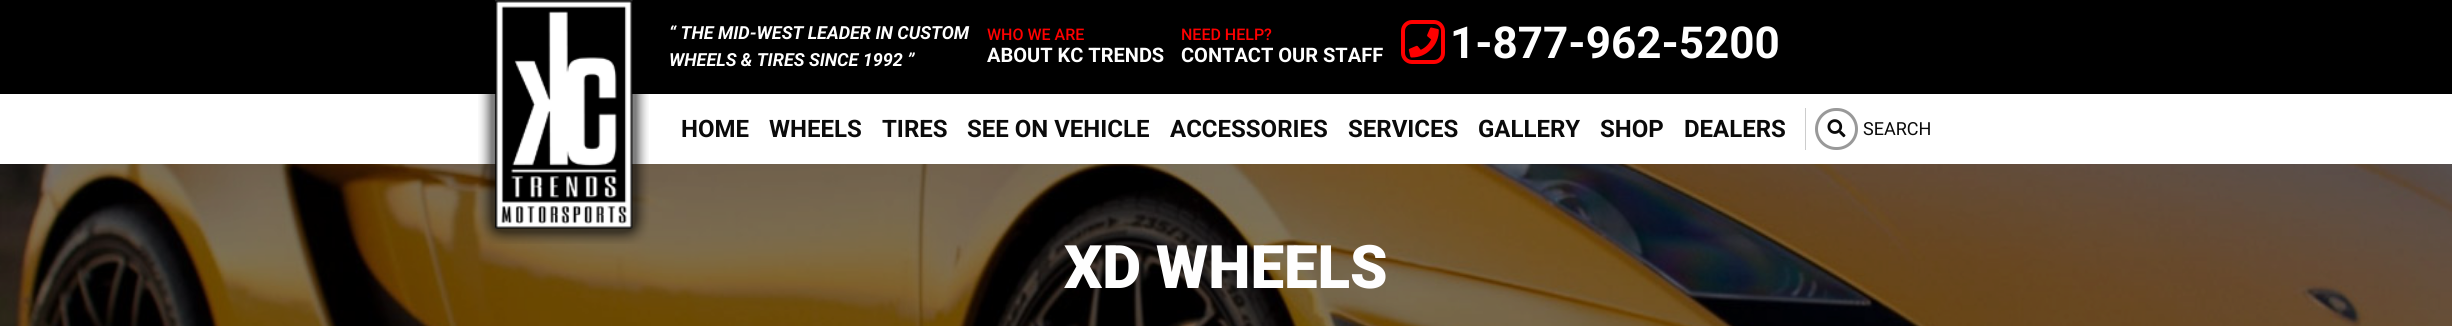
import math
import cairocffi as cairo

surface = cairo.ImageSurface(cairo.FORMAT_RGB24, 2452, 326)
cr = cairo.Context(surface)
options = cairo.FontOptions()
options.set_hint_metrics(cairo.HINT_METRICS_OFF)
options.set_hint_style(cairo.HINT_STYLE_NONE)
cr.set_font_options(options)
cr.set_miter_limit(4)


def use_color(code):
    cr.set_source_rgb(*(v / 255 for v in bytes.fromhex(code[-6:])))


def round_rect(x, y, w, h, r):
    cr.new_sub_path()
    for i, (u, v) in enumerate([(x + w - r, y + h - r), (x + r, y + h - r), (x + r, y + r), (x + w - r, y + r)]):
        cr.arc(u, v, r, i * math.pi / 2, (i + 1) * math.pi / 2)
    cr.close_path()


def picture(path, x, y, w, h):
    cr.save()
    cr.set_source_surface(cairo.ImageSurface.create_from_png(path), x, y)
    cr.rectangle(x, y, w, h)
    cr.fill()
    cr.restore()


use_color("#ffffff")
cr.paint()
use_color("#000000")
cr.rectangle(0, 0, 2452, 94)
cr.fill()
picture("img4.png", 0, 164, 2452, 162)
picture("img1.png", 478, 0, 171, 244)
cr.select_font_face("Roboto", cairo.FONT_SLANT_ITALIC, cairo.FONT_WEIGHT_BOLD)
cr.set_font_size(18)
use_color("#fefefe")
cr.move_to(669, 39)
cr.show_text("“ THE MID-WEST LEADER IN CUSTOM")
cr.move_to(669, 66)
cr.show_text("WHEELS & TIRES SINCE 1992 ”")
cr.select_font_face("Roboto Medium")
cr.set_font_size(16)
use_color("#ff0000")
cr.move_to(987, 40)
cr.show_text("WHO WE ARE")
cr.select_font_face("Roboto", cairo.FONT_SLANT_NORMAL, cairo.FONT_WEIGHT_BOLD)
cr.set_font_size(20)
use_color("#fefefe")
cr.move_to(987, 62)
cr.show_text("ABOUT KC TRENDS")
cr.select_font_face("Roboto Medium")
cr.set_font_size(16)
use_color("#ff0000")
cr.move_to(1181, 40)
cr.show_text("NEED HELP?")
cr.select_font_face("Roboto", cairo.FONT_SLANT_NORMAL, cairo.FONT_WEIGHT_BOLD)
cr.set_font_size(20)
use_color("#fefefe")
cr.move_to(1181, 62)
cr.show_text("CONTACT OUR STAFF")
round_rect(1403, 22, 40, 40, 9)
use_color("#ff0000")
cr.set_line_width(4)
cr.stroke()
picture("img2.png", 1408, 27, 31, 31)
cr.set_font_size(44)
use_color("#fefefe")
cr.move_to(1450, 58)
cr.show_text("1-877-962-5200")
cr.set_font_size(24)
use_color("#0a0a0a")
cr.move_to(681, 137)
cr.show_text("HOME")
cr.move_to(769, 137)
cr.show_text("WHEELS")
cr.move_to(882, 137)
cr.show_text("TIRES")
cr.move_to(967, 137)
cr.show_text("SEE ON VEHICLE")
cr.move_to(1170, 137)
cr.show_text("ACCESSORIES")
cr.move_to(1348, 137)
cr.show_text("SERVICES")
cr.move_to(1478, 137)
cr.show_text("GALLERY")
cr.move_to(1600, 137)
cr.show_text("SHOP")
cr.move_to(1684, 137)
cr.show_text("DEALERS")
use_color("#cccccc")
cr.rectangle(1805, 108, 1, 42)
cr.fill()
round_rect(1816.5, 109.5, 40, 39, 19.5)
use_color("#999999")
cr.set_line_width(3)
cr.stroke()
picture("img3.png", 1827, 119, 19, 19)
cr.select_font_face("Roboto")
cr.set_font_size(18)
use_color("#0a0a0a")
cr.move_to(1863, 135)
cr.show_text("SEARCH")
cr.select_font_face("Roboto Black")
cr.set_font_size(60)
use_color("#fefefe")
cr.move_to(1064, 288)
cr.show_text("XD WHEELS")
surface.write_to_png("result.png")
